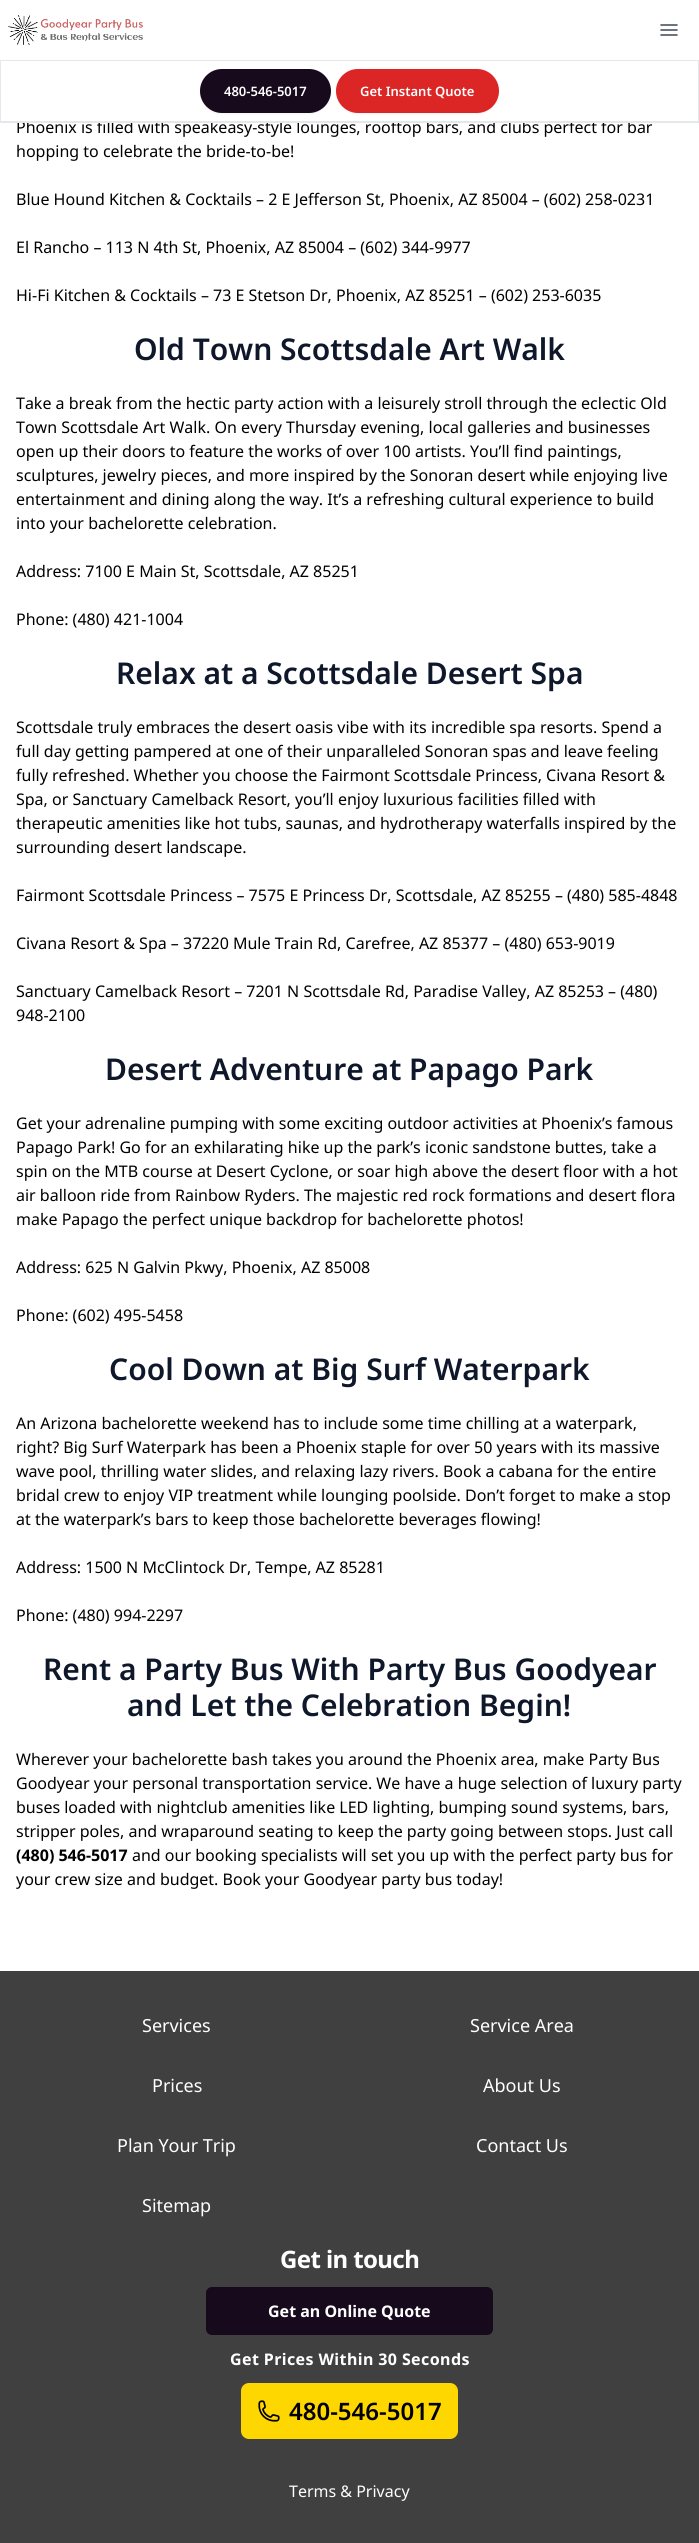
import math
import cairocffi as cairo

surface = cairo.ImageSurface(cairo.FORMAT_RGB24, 699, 2543)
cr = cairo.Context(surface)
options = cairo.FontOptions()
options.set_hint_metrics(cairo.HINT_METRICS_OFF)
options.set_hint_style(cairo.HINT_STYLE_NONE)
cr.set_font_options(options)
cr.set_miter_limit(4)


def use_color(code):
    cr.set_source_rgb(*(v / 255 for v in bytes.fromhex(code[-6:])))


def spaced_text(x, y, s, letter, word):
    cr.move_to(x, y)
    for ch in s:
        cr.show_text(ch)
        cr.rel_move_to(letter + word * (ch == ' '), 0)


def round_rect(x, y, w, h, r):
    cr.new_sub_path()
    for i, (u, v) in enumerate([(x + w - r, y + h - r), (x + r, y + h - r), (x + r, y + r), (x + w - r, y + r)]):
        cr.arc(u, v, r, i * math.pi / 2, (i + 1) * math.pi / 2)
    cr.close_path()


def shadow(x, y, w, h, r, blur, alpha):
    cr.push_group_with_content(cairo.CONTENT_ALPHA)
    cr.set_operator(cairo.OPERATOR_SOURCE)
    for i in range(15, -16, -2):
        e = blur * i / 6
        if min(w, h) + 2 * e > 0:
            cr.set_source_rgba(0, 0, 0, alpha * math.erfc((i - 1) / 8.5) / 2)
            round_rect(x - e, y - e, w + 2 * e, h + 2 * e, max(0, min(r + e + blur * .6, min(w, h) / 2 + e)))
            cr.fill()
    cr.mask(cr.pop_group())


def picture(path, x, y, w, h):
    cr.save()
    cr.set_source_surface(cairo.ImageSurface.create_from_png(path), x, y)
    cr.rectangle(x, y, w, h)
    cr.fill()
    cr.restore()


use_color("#ffffff")
cr.paint()
cr.select_font_face("Noto Sans")
cr.set_font_size(16)
use_color("#000000")
cr.move_to(16, 133)
cr.show_text("Phoenix is filled with speakeasy-style lounges, rooftop bars, and clubs perfect for bar")
use_color("#ffffff")
cr.rectangle(27, 120, 603, 1)
cr.fill()
use_color("#e5e7eb")
cr.rectangle(0, 122, 699, 1)
cr.fill()
picture("img1.png", 8, 15, 135, 31)
cr.new_path()
cr.move_to(661, 25)
cr.line_to(677, 25)
cr.move_to(661, 30)
cr.line_to(677, 30)
cr.move_to(661, 35)
cr.line_to(677, 35)
use_color("#374151")
cr.set_line_width(1.5)
cr.set_line_cap(cairo.LINE_CAP_ROUND)
cr.set_line_join(cairo.LINE_JOIN_ROUND)
cr.stroke()
cr.rectangle(0.5, 60.5, 698, 61)
use_color("#e5e7eb")
cr.set_line_width(1)
cr.set_line_cap(cairo.LINE_CAP_BUTT)
cr.set_line_join(cairo.LINE_JOIN_MITER)
cr.stroke()
use_color("#000000")
shadow(200, 70, 131, 44, 22, 1, 0.05)
use_color("#170a1c")
round_rect(200, 69, 131, 44, 22)
cr.fill()
cr.select_font_face("Noto Sans SemiBold")
cr.set_font_size(13)
use_color("#ffffff")
cr.move_to(224, 96)
cr.show_text("480-546-5017")
use_color("#000000")
shadow(336, 70, 163, 44, 22, 1, 0.05)
use_color("#dc2626")
round_rect(336, 69, 163, 44, 22)
cr.fill()
use_color("#ffffff")
cr.move_to(360, 96)
cr.show_text("Get Instant Quote")
cr.select_font_face("Noto Sans")
cr.set_font_size(16)
use_color("#000000")
cr.move_to(16, 157)
cr.show_text("hopping to celebrate the bride-to-be!")
cr.move_to(16, 205)
cr.show_text("Blue Hound Kitchen & Cocktails – 2 E Jefferson St, Phoenix, AZ 85004 – (602) 258-0231")
cr.move_to(16, 253)
cr.show_text("El Rancho – 113 N 4th St, Phoenix, AZ 85004 – (602) 344-9977")
cr.move_to(16, 301)
cr.show_text("Hi-Fi Kitchen & Cocktails – 73 E Stetson Dr, Phoenix, AZ 85251 – (602) 253-6035")
cr.select_font_face("Noto Sans SemiBold")
cr.set_font_size(30)
use_color("#0f172a")
cr.move_to(134, 360)
cr.show_text("Old Town Scottsdale Art Walk")
cr.select_font_face("Noto Sans")
cr.set_font_size(16)
use_color("#000000")
cr.move_to(16, 409)
cr.show_text("Take a break from the hectic party action with a leisurely stroll through the eclectic Old")
cr.move_to(16, 433)
cr.show_text("Town Scottsdale Art Walk. On every Thursday evening, local galleries and businesses")
cr.move_to(16, 457)
cr.show_text("open up their doors to feature the works of over 100 artists. You’ll find paintings,")
cr.move_to(16, 481)
cr.show_text("sculptures, jewelry pieces, and more inspired by the Sonoran desert while enjoying live")
cr.move_to(16, 505)
cr.show_text("entertainment and dining along the way. It’s a refreshing cultural experience to build")
cr.move_to(16, 529)
cr.show_text("into your bachelorette celebration.")
cr.move_to(16, 577)
cr.show_text("Address: 7100 E Main St, Scottsdale, AZ 85251")
cr.move_to(16, 625)
cr.show_text("Phone: (480) 421-1004")
cr.select_font_face("Noto Sans SemiBold")
cr.set_font_size(30)
use_color("#0f172a")
cr.move_to(116, 684)
cr.show_text("Relax at a Scottsdale Desert Spa")
cr.select_font_face("Noto Sans")
cr.set_font_size(16)
use_color("#000000")
cr.move_to(16, 733)
cr.show_text("Scottsdale truly embraces the desert oasis vibe with its incredible spa resorts. Spend a")
cr.move_to(16, 757)
cr.show_text("full day getting pampered at one of their unparalleled Sonoran spas and leave feeling")
cr.move_to(16, 781)
cr.show_text("fully refreshed. Whether you choose the Fairmont Scottsdale Princess, Civana Resort &")
cr.move_to(16, 805)
cr.show_text("Spa, or Sanctuary Camelback Resort, you’ll enjoy luxurious facilities filled with")
cr.move_to(16, 829)
cr.show_text("therapeutic amenities like hot tubs, saunas, and hydrotherapy waterfalls inspired by the")
cr.move_to(16, 853)
cr.show_text("surrounding desert landscape.")
cr.move_to(16, 901)
cr.show_text("Fairmont Scottsdale Princess – 7575 E Princess Dr, Scottsdale, AZ 85255 – (480) 585-4848")
cr.move_to(16, 949)
cr.show_text("Civana Resort & Spa – 37220 Mule Train Rd, Carefree, AZ 85377 – (480) 653-9019")
cr.move_to(16, 997)
cr.show_text("Sanctuary Camelback Resort – 7201 N Scottsdale Rd, Paradise Valley, AZ 85253 – (480)")
cr.move_to(16, 1021)
cr.show_text("948-2100")
cr.select_font_face("Noto Sans SemiBold")
cr.set_font_size(30)
use_color("#0f172a")
cr.move_to(105, 1080)
cr.show_text("Desert Adventure at Papago Park")
cr.select_font_face("Noto Sans")
cr.set_font_size(16)
use_color("#000000")
cr.move_to(16, 1129)
cr.show_text("Get your adrenaline pumping with some exciting outdoor activities at Phoenix’s famous")
cr.move_to(16, 1153)
cr.show_text("Papago Park! Go for an exhilarating hike up the park’s iconic sandstone buttes, take a")
cr.move_to(16, 1177)
cr.show_text("spin on the MTB course at Desert Cyclone, or soar high above the desert floor with a hot")
cr.move_to(16, 1201)
cr.show_text("air balloon ride from Rainbow Ryders. The majestic red rock formations and desert flora")
cr.move_to(16, 1225)
cr.show_text("make Papago the perfect unique backdrop for bachelorette photos!")
cr.move_to(16, 1273)
cr.show_text("Address: 625 N Galvin Pkwy, Phoenix, AZ 85008")
cr.move_to(16, 1321)
cr.show_text("Phone: (602) 495-5458")
cr.select_font_face("Noto Sans SemiBold")
cr.set_font_size(30)
use_color("#0f172a")
cr.move_to(109, 1380)
cr.show_text("Cool Down at Big Surf Waterpark")
cr.select_font_face("Noto Sans")
cr.set_font_size(16)
use_color("#000000")
cr.move_to(16, 1429)
cr.show_text("An Arizona bachelorette weekend has to include some time chilling at a waterpark,")
cr.move_to(16, 1453)
cr.show_text("right? Big Surf Waterpark has been a Phoenix staple for over 50 years with its massive")
cr.move_to(16, 1477)
cr.show_text("wave pool, thrilling water slides, and relaxing lazy rivers. Book a cabana for the entire")
cr.move_to(16, 1501)
cr.show_text("bridal crew to enjoy VIP treatment while lounging poolside. Don’t forget to make a stop")
cr.move_to(16, 1525)
cr.show_text("at the waterpark’s bars to keep those bachelorette beverages flowing!")
cr.move_to(16, 1573)
cr.show_text("Address: 1500 N McClintock Dr, Tempe, AZ 85281")
cr.move_to(16, 1621)
cr.show_text("Phone: (480) 994-2297")
cr.select_font_face("Noto Sans SemiBold")
cr.set_font_size(30)
use_color("#0f172a")
cr.move_to(43, 1680)
cr.show_text("Rent a Party Bus With Party Bus Goodyear")
cr.move_to(127, 1716)
cr.show_text("and Let the Celebration Begin!")
cr.select_font_face("Noto Sans")
cr.set_font_size(16)
use_color("#000000")
cr.move_to(16, 1765)
cr.show_text("Wherever your bachelorette bash takes you around the Phoenix area, make Party Bus")
cr.move_to(16, 1789)
cr.show_text("Goodyear your personal transportation service. We have a huge selection of luxury party")
cr.move_to(16, 1813)
cr.show_text("buses loaded with nightclub amenities like LED lighting, bumping sound systems, bars,")
cr.move_to(16, 1837)
cr.show_text("stripper poles, and wraparound seating to keep the party going between stops. Just call")
cr.select_font_face("Noto Sans", cairo.FONT_SLANT_NORMAL, cairo.FONT_WEIGHT_BOLD)
cr.move_to(16, 1861)
cr.show_text("(480) 546-5017")
cr.select_font_face("Noto Sans")
cr.move_to(132, 1861)
cr.show_text("and our booking specialists will set you up with the perfect party bus for")
cr.move_to(16, 1885)
cr.show_text("your crew size and budget. Book your Goodyear party bus today!")
use_color("#404040")
cr.rectangle(0, 1971, 699, 572)
cr.fill()
cr.set_font_size(18)
use_color("#ffffff")
cr.move_to(142, 2032)
cr.show_text("Services")
cr.move_to(470, 2032)
cr.show_text("Service Area")
cr.move_to(152, 2092)
cr.show_text("Prices")
cr.move_to(483, 2092)
cr.show_text("About Us")
cr.move_to(117, 2152)
cr.show_text("Plan Your Trip")
cr.move_to(476, 2152)
cr.show_text("Contact Us")
cr.move_to(142, 2212)
cr.show_text("Sitemap")
cr.select_font_face("Noto Sans", cairo.FONT_SLANT_NORMAL, cairo.FONT_WEIGHT_BOLD)
cr.set_font_size(24)
spaced_text(280, 2268, "Get in touch", -0.6, 0)
use_color("#170a1c")
round_rect(206, 2287, 287, 48, 6)
cr.fill()
cr.set_font_size(16)
use_color("#ffffff")
cr.move_to(268, 2317)
cr.show_text("Get an Online Quote")
spaced_text(230, 2365, "Get Prices Within 30 Seconds", 0.4, 0)
use_color("#ffd700")
round_rect(241, 2383, 217, 56, 8)
cr.fill()
picture("img2.png", 258, 2400, 22, 22)
cr.select_font_face("Noto Sans SemiBold")
cr.set_font_size(24)
use_color("#000000")
cr.move_to(289, 2420)
cr.show_text("480-546-5017")
cr.select_font_face("Noto Sans")
cr.set_font_size(16)
use_color("#ffffff")
cr.move_to(289, 2497)
cr.show_text("Terms & Privacy")
surface.write_to_png("result.png")
